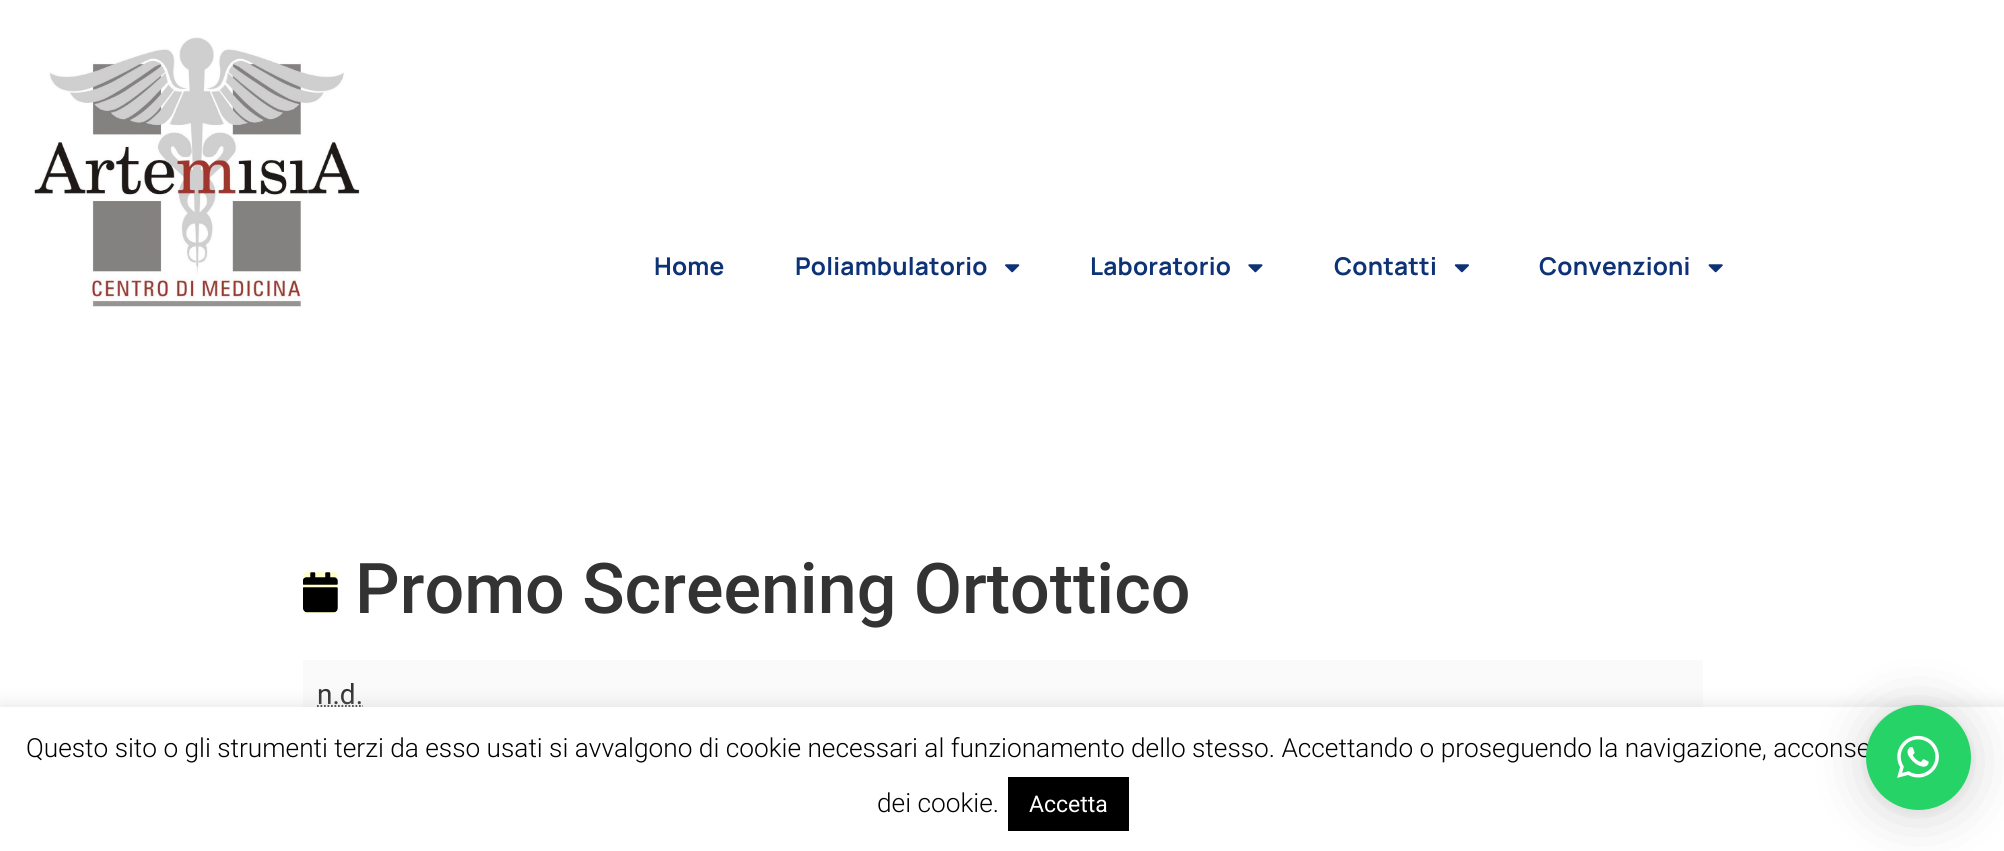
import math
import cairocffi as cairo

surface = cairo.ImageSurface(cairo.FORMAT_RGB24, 2004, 851)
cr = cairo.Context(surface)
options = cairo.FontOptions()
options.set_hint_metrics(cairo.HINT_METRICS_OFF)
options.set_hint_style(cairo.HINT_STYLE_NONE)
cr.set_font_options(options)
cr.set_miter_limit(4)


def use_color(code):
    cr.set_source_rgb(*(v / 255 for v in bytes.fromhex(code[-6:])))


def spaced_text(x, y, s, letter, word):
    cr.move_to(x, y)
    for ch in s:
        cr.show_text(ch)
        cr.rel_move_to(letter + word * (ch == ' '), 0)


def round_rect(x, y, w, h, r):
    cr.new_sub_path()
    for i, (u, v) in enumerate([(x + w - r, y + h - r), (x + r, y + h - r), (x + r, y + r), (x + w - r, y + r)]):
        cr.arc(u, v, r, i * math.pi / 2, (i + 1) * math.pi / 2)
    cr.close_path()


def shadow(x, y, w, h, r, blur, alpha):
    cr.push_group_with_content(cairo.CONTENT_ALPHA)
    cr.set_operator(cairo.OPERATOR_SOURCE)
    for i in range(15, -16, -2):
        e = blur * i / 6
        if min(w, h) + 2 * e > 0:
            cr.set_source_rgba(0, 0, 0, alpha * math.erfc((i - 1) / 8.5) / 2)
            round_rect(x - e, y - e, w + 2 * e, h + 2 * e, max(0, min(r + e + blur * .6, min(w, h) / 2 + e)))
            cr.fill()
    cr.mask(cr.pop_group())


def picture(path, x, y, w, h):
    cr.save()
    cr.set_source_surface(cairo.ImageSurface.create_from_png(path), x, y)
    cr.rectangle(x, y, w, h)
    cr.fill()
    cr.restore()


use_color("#ffffff")
cr.paint()
picture("img1.png", 34, 37, 326, 270)
cr.select_font_face("Manrope", cairo.FONT_SLANT_NORMAL, cairo.FONT_WEIGHT_BOLD)
cr.set_font_size(24.5)
use_color("#0d3276")
spaced_text(654, 275, "Home", 0.2, 0)
spaced_text(795, 275, "Poliambulatorio", 0.2, 0)
picture("img2.png", 1005, 264, 15, 9)
spaced_text(1090, 275, "Laboratorio", 0.2, 0)
picture("img3.png", 1248, 264, 15, 9)
spaced_text(1334, 275, "Contatti", 0.2, 0)
picture("img4.png", 1454, 264, 15, 9)
spaced_text(1539, 275, "Convenzioni", 0.2, 0)
picture("img5.png", 1708, 264, 15, 9)
use_color("#ffffcc")
round_rect(303, 572, 35, 41, 5)
cr.fill()
picture("img6.png", 303, 572, 35, 41)
cr.select_font_face("Roboto Medium")
cr.set_font_size(70)
use_color("#333333")
cr.move_to(355, 613)
cr.show_text("Promo Screening Ortottico")
use_color("#fafafa")
cr.rectangle(303, 660, 1400, 47)
cr.fill()
cr.select_font_face("Roboto")
cr.set_font_size(28)
use_color("#333333")
cr.move_to(317, 704)
cr.show_text("n.d.")
cr.new_path()
cr.move_to(317, 706)
cr.line_to(363, 706)
cr.set_line_width(1.8)
cr.set_dash([1.75, 1.75])
cr.stroke()
use_color("#acabab")
shadow(0, 705, 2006, 146, 0, 9, 0.3)
use_color("#ffffff")
cr.rectangle(0, 707, 2004, 144)
cr.fill()
use_color("#000000")
shadow(1866, 709, 105, 105, 52.5, 28, 0.16)
shadow(1866, 707, 105, 105, 52.5, 5, 0.06)
cr.select_font_face("Roboto Light")
cr.set_font_size(26.25)
use_color("#000000")
cr.move_to(26, 757)
cr.show_text("Questo sito o gli strumenti terzi da esso usati si avvalgono di cookie necessari al funzionamento dello stesso. Accettando o proseguendo la navigazione, acconse")
use_color("#25d366")
cr.new_path()
cr.arc(1918.5, 757.5, 52.5, 0, 2 * math.pi)
cr.fill()
picture("img7.png", 1897, 735, 42, 43)
use_color("#000000")
cr.move_to(877, 812)
cr.show_text("dei cookie.")
cr.rectangle(1008, 777, 121, 54)
cr.fill()
cr.select_font_face("Roboto")
cr.set_font_size(23)
use_color("#ffffff")
cr.move_to(1029, 812)
cr.show_text("Accetta")
surface.write_to_png("result.png")
